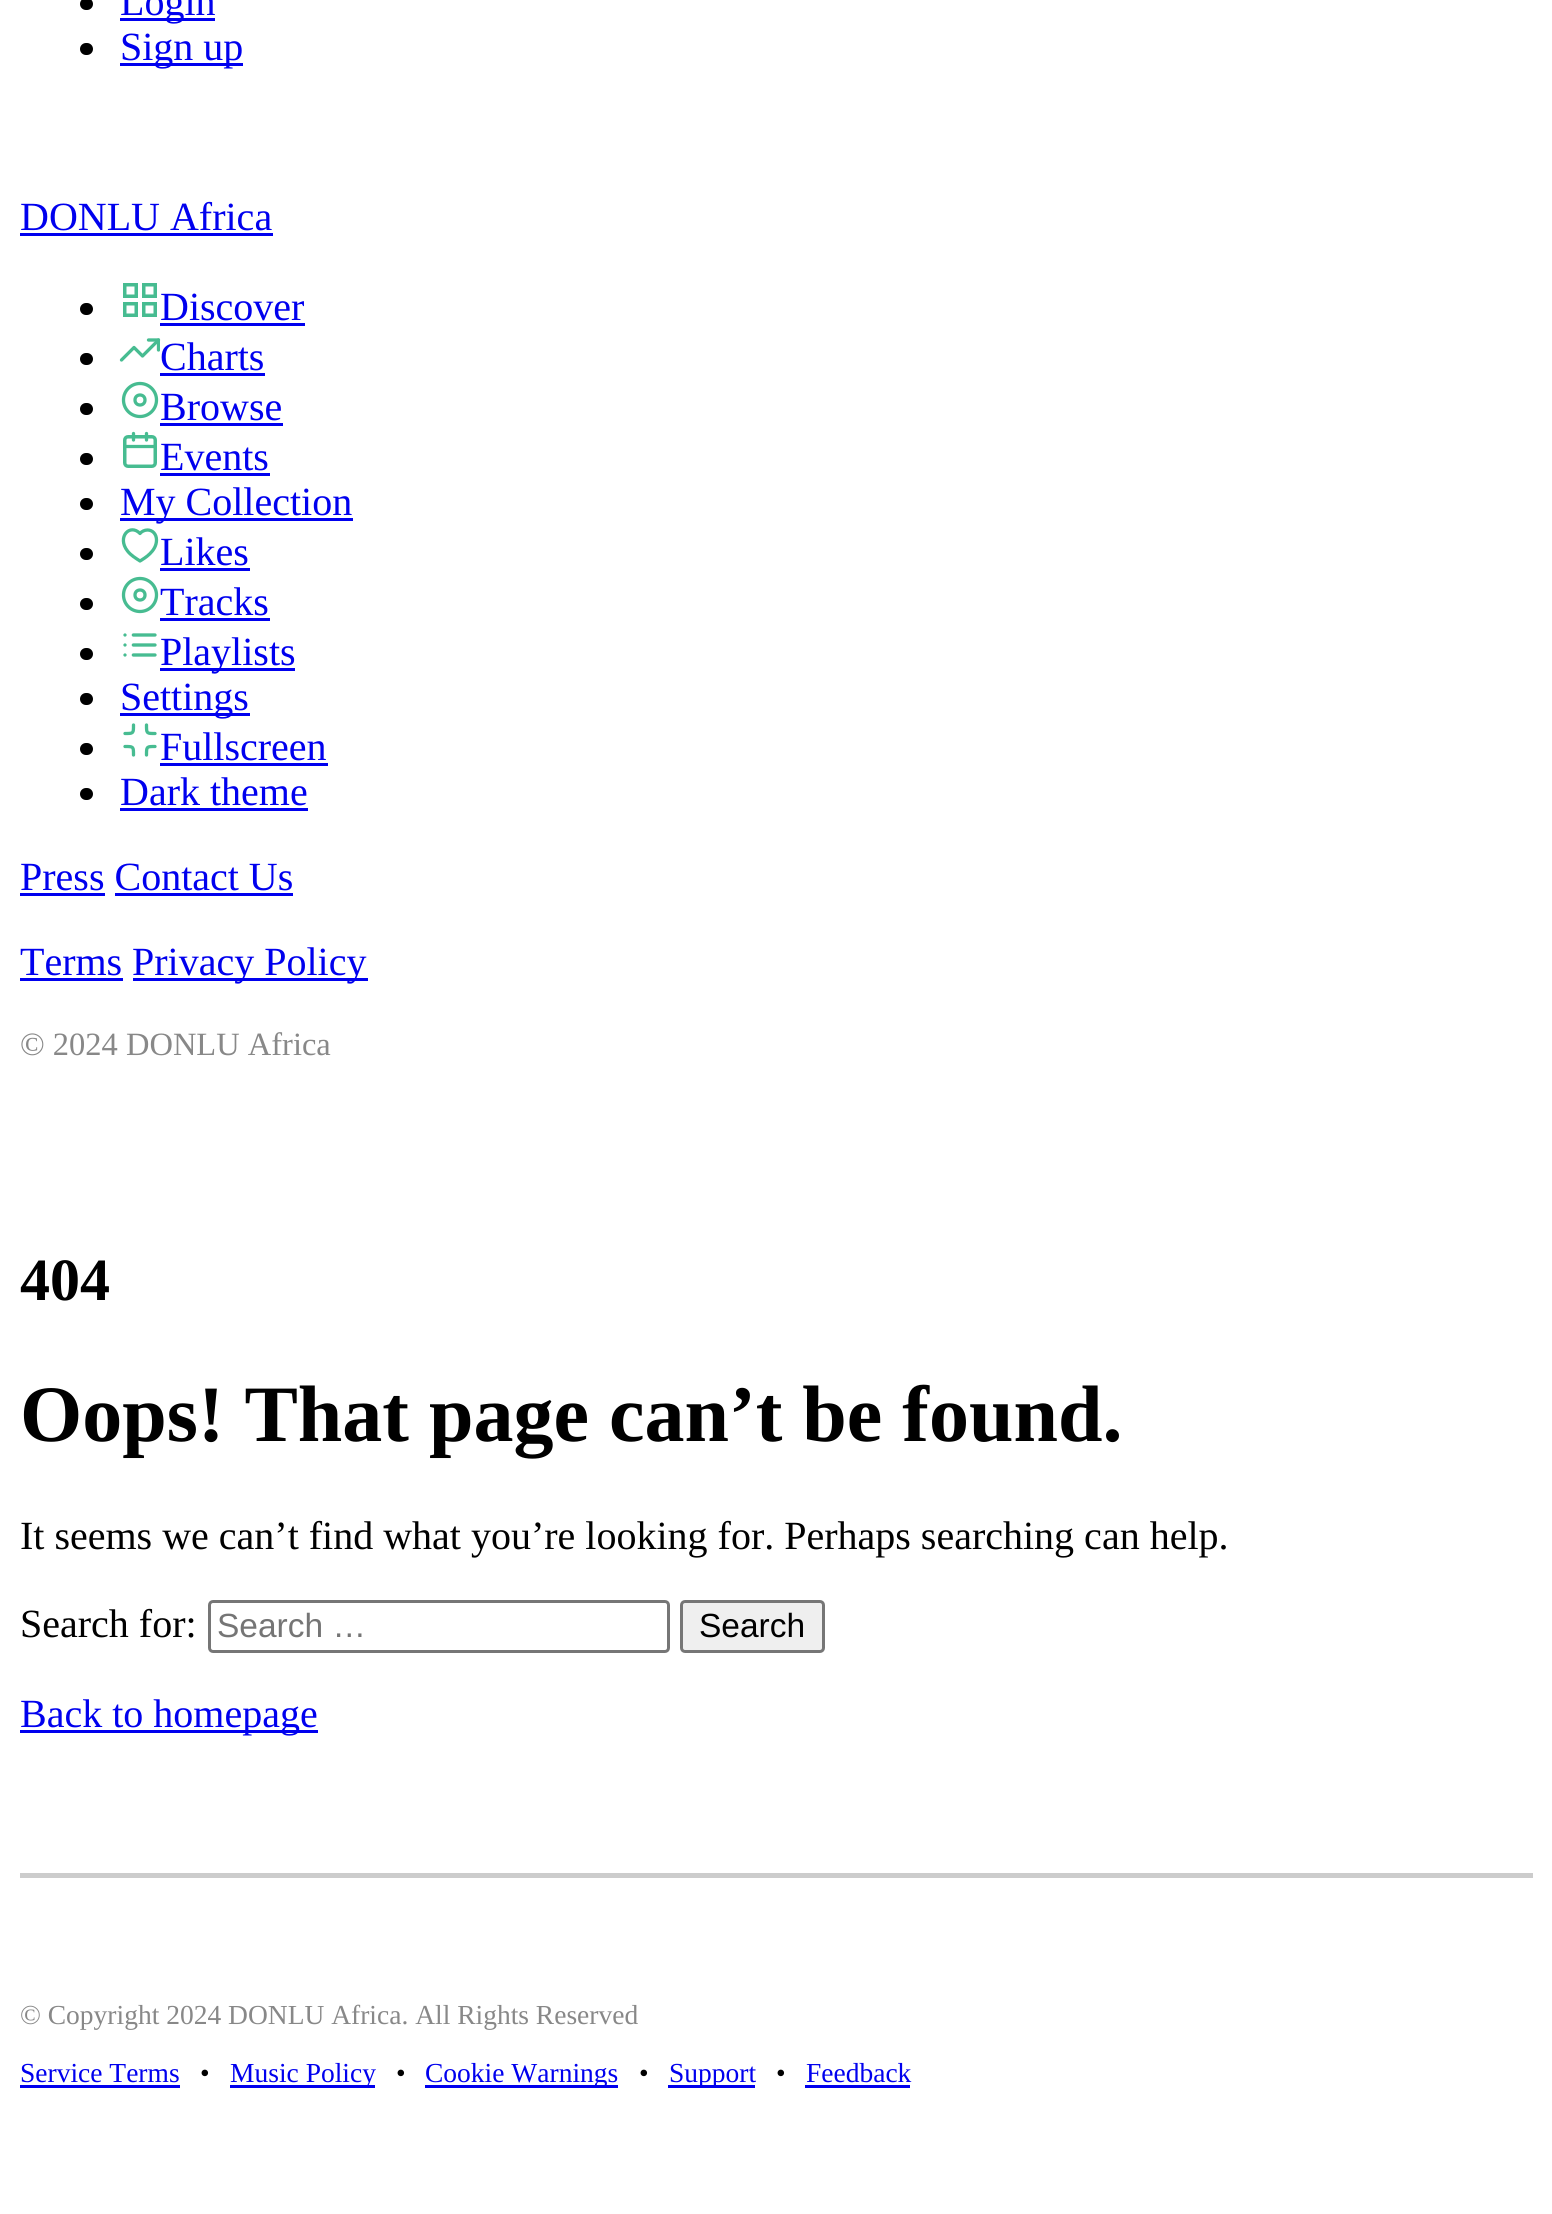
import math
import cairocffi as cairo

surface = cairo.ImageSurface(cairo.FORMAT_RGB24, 1552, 2214)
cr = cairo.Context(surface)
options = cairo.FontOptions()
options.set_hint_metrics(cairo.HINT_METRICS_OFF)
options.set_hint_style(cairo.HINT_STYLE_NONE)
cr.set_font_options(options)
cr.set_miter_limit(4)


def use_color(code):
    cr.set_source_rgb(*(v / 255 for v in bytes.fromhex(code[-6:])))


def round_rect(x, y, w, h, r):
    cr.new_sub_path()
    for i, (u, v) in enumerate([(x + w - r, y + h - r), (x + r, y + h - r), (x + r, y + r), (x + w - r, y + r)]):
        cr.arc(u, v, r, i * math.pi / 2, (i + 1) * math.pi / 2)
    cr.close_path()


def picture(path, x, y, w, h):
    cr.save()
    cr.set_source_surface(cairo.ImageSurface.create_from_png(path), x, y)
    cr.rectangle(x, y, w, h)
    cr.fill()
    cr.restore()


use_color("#ffffff")
cr.paint()
use_color("#000000")
round_rect(80, -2, 13, 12, 6)
cr.fill()
use_color("#0000ee")
cr.rectangle(120, 18, 95, 3)
cr.fill()
cr.select_font_face("Liberation Serif")
cr.set_font_size(40)
cr.move_to(120, 15)
cr.show_text("Login")
use_color("#000000")
round_rect(80, 43, 13, 12, 6)
cr.fill()
use_color("#0000ee")
cr.rectangle(120, 63, 123, 3)
cr.fill()
cr.move_to(120, 60)
cr.show_text("Sign up")
cr.move_to(20, 230)
cr.show_text("DONLU Africa")
cr.rectangle(20, 233, 253, 3)
cr.fill()
use_color("#000000")
round_rect(80, 303, 13, 12, 6)
cr.fill()
use_color("#0000ee")
cr.move_to(160, 320)
cr.show_text("Discover")
cr.rectangle(160, 323, 145, 3)
cr.fill()
cr.rectangle(124.75, 284.75, 11.5, 11.5)
use_color("#47bc91")
cr.set_line_width(3.5)
cr.stroke()
cr.rectangle(143.75, 284.75, 11.5, 11.5)
cr.stroke()
cr.rectangle(143.75, 303.75, 11.5, 11.5)
cr.stroke()
cr.rectangle(124.75, 303.75, 11.5, 11.5)
cr.stroke()
use_color("#000000")
round_rect(80, 353, 13, 12, 6)
cr.fill()
use_color("#0000ee")
cr.move_to(160, 370)
cr.show_text("Charts")
cr.rectangle(160, 373, 105, 3)
cr.fill()
cr.new_path()
cr.move_to(158.5, 340)
cr.line_to(142.5, 356)
cr.line_to(134, 347.5)
cr.line_to(121.5, 360)
use_color("#47bc91")
cr.set_line_width(3.3)
cr.set_line_cap(cairo.LINE_CAP_ROUND)
cr.set_line_join(cairo.LINE_JOIN_ROUND)
cr.stroke()
cr.save()
cr.rectangle(120, 330, 40, 40)
cr.clip()
cr.new_path()
cr.move_to(148.5, 340)
cr.line_to(158.5, 340)
cr.line_to(158.5, 350)
cr.stroke()
cr.restore()
use_color("#000000")
round_rect(80, 403, 13, 12, 6)
cr.fill()
use_color("#0000ee")
cr.move_to(160, 420)
cr.show_text("Browse")
cr.rectangle(160, 423, 123, 3)
cr.fill()
cr.arc(140, 400, 16.5, 0, 2 * math.pi)
use_color("#47bc91")
cr.set_line_cap(cairo.LINE_CAP_BUTT)
cr.set_line_join(cairo.LINE_JOIN_MITER)
cr.stroke()
cr.arc(140, 400, 5, 0, 2 * math.pi)
cr.stroke()
use_color("#000000")
round_rect(80, 453, 13, 12, 6)
cr.fill()
use_color("#0000ee")
cr.move_to(160, 470)
cr.show_text("Events")
cr.rectangle(160, 473, 110, 3)
cr.fill()
round_rect(124.75, 436.75, 30.5, 29.5, 3.25)
use_color("#47bc91")
cr.set_line_width(3.5)
cr.stroke()
cr.new_path()
cr.move_to(146.5, 433.5)
cr.line_to(146.5, 440)
cr.move_to(133.5, 433.5)
cr.line_to(133.5, 440)
cr.move_to(125, 446.5)
cr.line_to(155, 446.5)
cr.set_line_width(3.3)
cr.set_line_cap(cairo.LINE_CAP_ROUND)
cr.set_line_join(cairo.LINE_JOIN_ROUND)
cr.stroke()
use_color("#000000")
round_rect(80, 498, 13, 12, 6)
cr.fill()
use_color("#0000ee")
cr.rectangle(120, 518, 233, 3)
cr.fill()
cr.move_to(120, 515)
cr.show_text("My Collection")
use_color("#000000")
round_rect(80, 548, 13, 12, 6)
cr.fill()
use_color("#0000ee")
cr.move_to(160, 565)
cr.show_text("Likes")
cr.rectangle(160, 568, 90, 3)
cr.fill()
cr.new_path()
cr.move_to(147.5, 530)
cr.curve_to(152.5, 530, 156.5, 534, 156.5, 540)
cr.curve_to(156.5, 551.5, 144, 558.5, 140, 561)
cr.curve_to(135.5, 558, 131, 555.5, 127.5, 551)
cr.curve_to(116.5, 537, 130, 523, 140, 533.5)
cr.curve_to(141.5, 531.5, 144.5, 530, 147.5, 530)
cr.close_path()
use_color("#47bc91")
cr.stroke()
use_color("#000000")
round_rect(80, 598, 13, 12, 6)
cr.fill()
use_color("#0000ee")
cr.move_to(160, 615)
cr.show_text("Tracks")
cr.rectangle(160, 618, 110, 3)
cr.fill()
cr.arc(140, 595, 16.5, 0, 2 * math.pi)
use_color("#47bc91")
cr.set_line_cap(cairo.LINE_CAP_BUTT)
cr.set_line_join(cairo.LINE_JOIN_MITER)
cr.stroke()
cr.arc(140, 595, 5, 0, 2 * math.pi)
cr.stroke()
use_color("#000000")
round_rect(80, 648, 13, 12, 6)
cr.fill()
picture("img1.png", 123, 633, 34, 24)
use_color("#0000ee")
cr.rectangle(160, 668, 135, 3)
cr.fill()
cr.move_to(160, 665)
cr.show_text("Playlists")
use_color("#000000")
round_rect(80, 693, 13, 12, 6)
cr.fill()
use_color("#0000ee")
cr.rectangle(120, 713, 130, 3)
cr.fill()
cr.move_to(120, 710)
cr.show_text("Settings")
use_color("#000000")
round_rect(80, 743, 13, 12, 6)
cr.fill()
use_color("#0000ee")
cr.move_to(160, 760)
cr.show_text("Fullscreen")
cr.rectangle(160, 763, 168, 3)
cr.fill()
cr.new_path()
cr.move_to(133.5, 725)
cr.curve_to(133.5, 733.5, 133.5, 733.5, 125, 733.5)
cr.move_to(155, 733.5)
cr.curve_to(146.5, 733.5, 146.5, 733.5, 146.5, 725)
cr.move_to(146.5, 755)
cr.curve_to(146.5, 746.5, 146.5, 746.5, 155, 746.5)
cr.move_to(125, 746.5)
cr.curve_to(133.5, 746.5, 133.5, 746.5, 133.5, 755)
use_color("#47bc91")
cr.set_line_cap(cairo.LINE_CAP_ROUND)
cr.set_line_join(cairo.LINE_JOIN_ROUND)
cr.stroke()
use_color("#000000")
round_rect(80, 788, 13, 12, 6)
cr.fill()
use_color("#0000ee")
cr.move_to(120, 805)
cr.show_text("Dark theme")
cr.rectangle(120, 808, 188, 3)
cr.fill()
cr.move_to(20, 890)
cr.show_text("Press Contact Us")
cr.rectangle(20, 893, 85, 3)
cr.fill()
cr.rectangle(115, 893, 178, 3)
cr.fill()
cr.move_to(20, 975)
cr.show_text("Terms")
cr.rectangle(20, 978, 103, 3)
cr.fill()
cr.rectangle(133, 978, 235, 3)
cr.fill()
cr.move_to(132, 975)
cr.show_text("Privacy Policy")
cr.set_font_size(32.5)
use_color("#888888")
cr.move_to(20, 1055)
cr.show_text("© 2024 DONLU Africa")
cr.select_font_face("Liberation Serif", cairo.FONT_SLANT_NORMAL, cairo.FONT_WEIGHT_BOLD)
cr.set_font_size(60)
use_color("#000000")
cr.move_to(20, 1300)
cr.show_text("404")
cr.set_font_size(80)
cr.move_to(20, 1441)
cr.show_text("Oops! That page can’t be found.")
cr.select_font_face("Liberation Serif")
cr.set_font_size(40)
cr.move_to(20, 1549)
cr.show_text("It seems we can’t find what you’re looking for. Perhaps searching can help.")
cr.move_to(20, 1637)
cr.show_text("Search for:")
round_rect(209.5, 1601.5, 459, 50, 3.5)
use_color("#767676")
cr.set_line_width(3)
cr.set_line_cap(cairo.LINE_CAP_BUTT)
cr.set_line_join(cairo.LINE_JOIN_MITER)
cr.stroke()
cr.select_font_face("Liberation Sans")
cr.set_font_size(33.5)
use_color("#757575")
cr.move_to(217, 1637)
cr.show_text("Search …")
use_color("#efefef")
round_rect(681.5, 1601.5, 142, 50, 3.5)
cr.fill_preserve()
use_color("#767676")
cr.stroke()
use_color("#000000")
cr.move_to(699, 1637)
cr.show_text("Search")
use_color("#0000ee")
cr.rectangle(20, 1730, 298, 3)
cr.fill()
cr.select_font_face("Liberation Serif")
cr.set_font_size(40)
cr.move_to(20, 1727)
cr.show_text("Back to homepage")
use_color("#cccccc")
cr.rectangle(20, 1873, 1513, 5)
cr.fill()
cr.set_font_size(27.5)
use_color("#888888")
cr.move_to(20, 2024)
cr.show_text("© Copyright 2024 DONLU Africa. All Rights Reserved")
use_color("#0000ee")
cr.move_to(20, 2082)
cr.show_text("Service Terms")
cr.rectangle(20, 2085, 160, 3)
cr.fill()
use_color("#000000")
cr.move_to(200, 2082)
cr.show_text("•")
use_color("#0000ee")
cr.rectangle(230, 2085, 145, 3)
cr.fill()
cr.move_to(230, 2082)
cr.show_text("Music Policy")
use_color("#000000")
cr.move_to(396, 2082)
cr.show_text("•")
use_color("#0000ee")
cr.rectangle(425, 2085, 193, 3)
cr.fill()
cr.move_to(425, 2082)
cr.show_text("Cookie Warnings")
use_color("#000000")
cr.move_to(639, 2082)
cr.show_text("•")
use_color("#0000ee")
cr.rectangle(668, 2085, 87, 3)
cr.fill()
cr.move_to(669, 2082)
cr.show_text("Support")
use_color("#000000")
cr.move_to(776, 2082)
cr.show_text("•")
use_color("#0000ee")
cr.move_to(806, 2082)
cr.show_text("Feedback")
cr.rectangle(805, 2085, 105, 3)
cr.fill()
surface.write_to_png("result.png")
